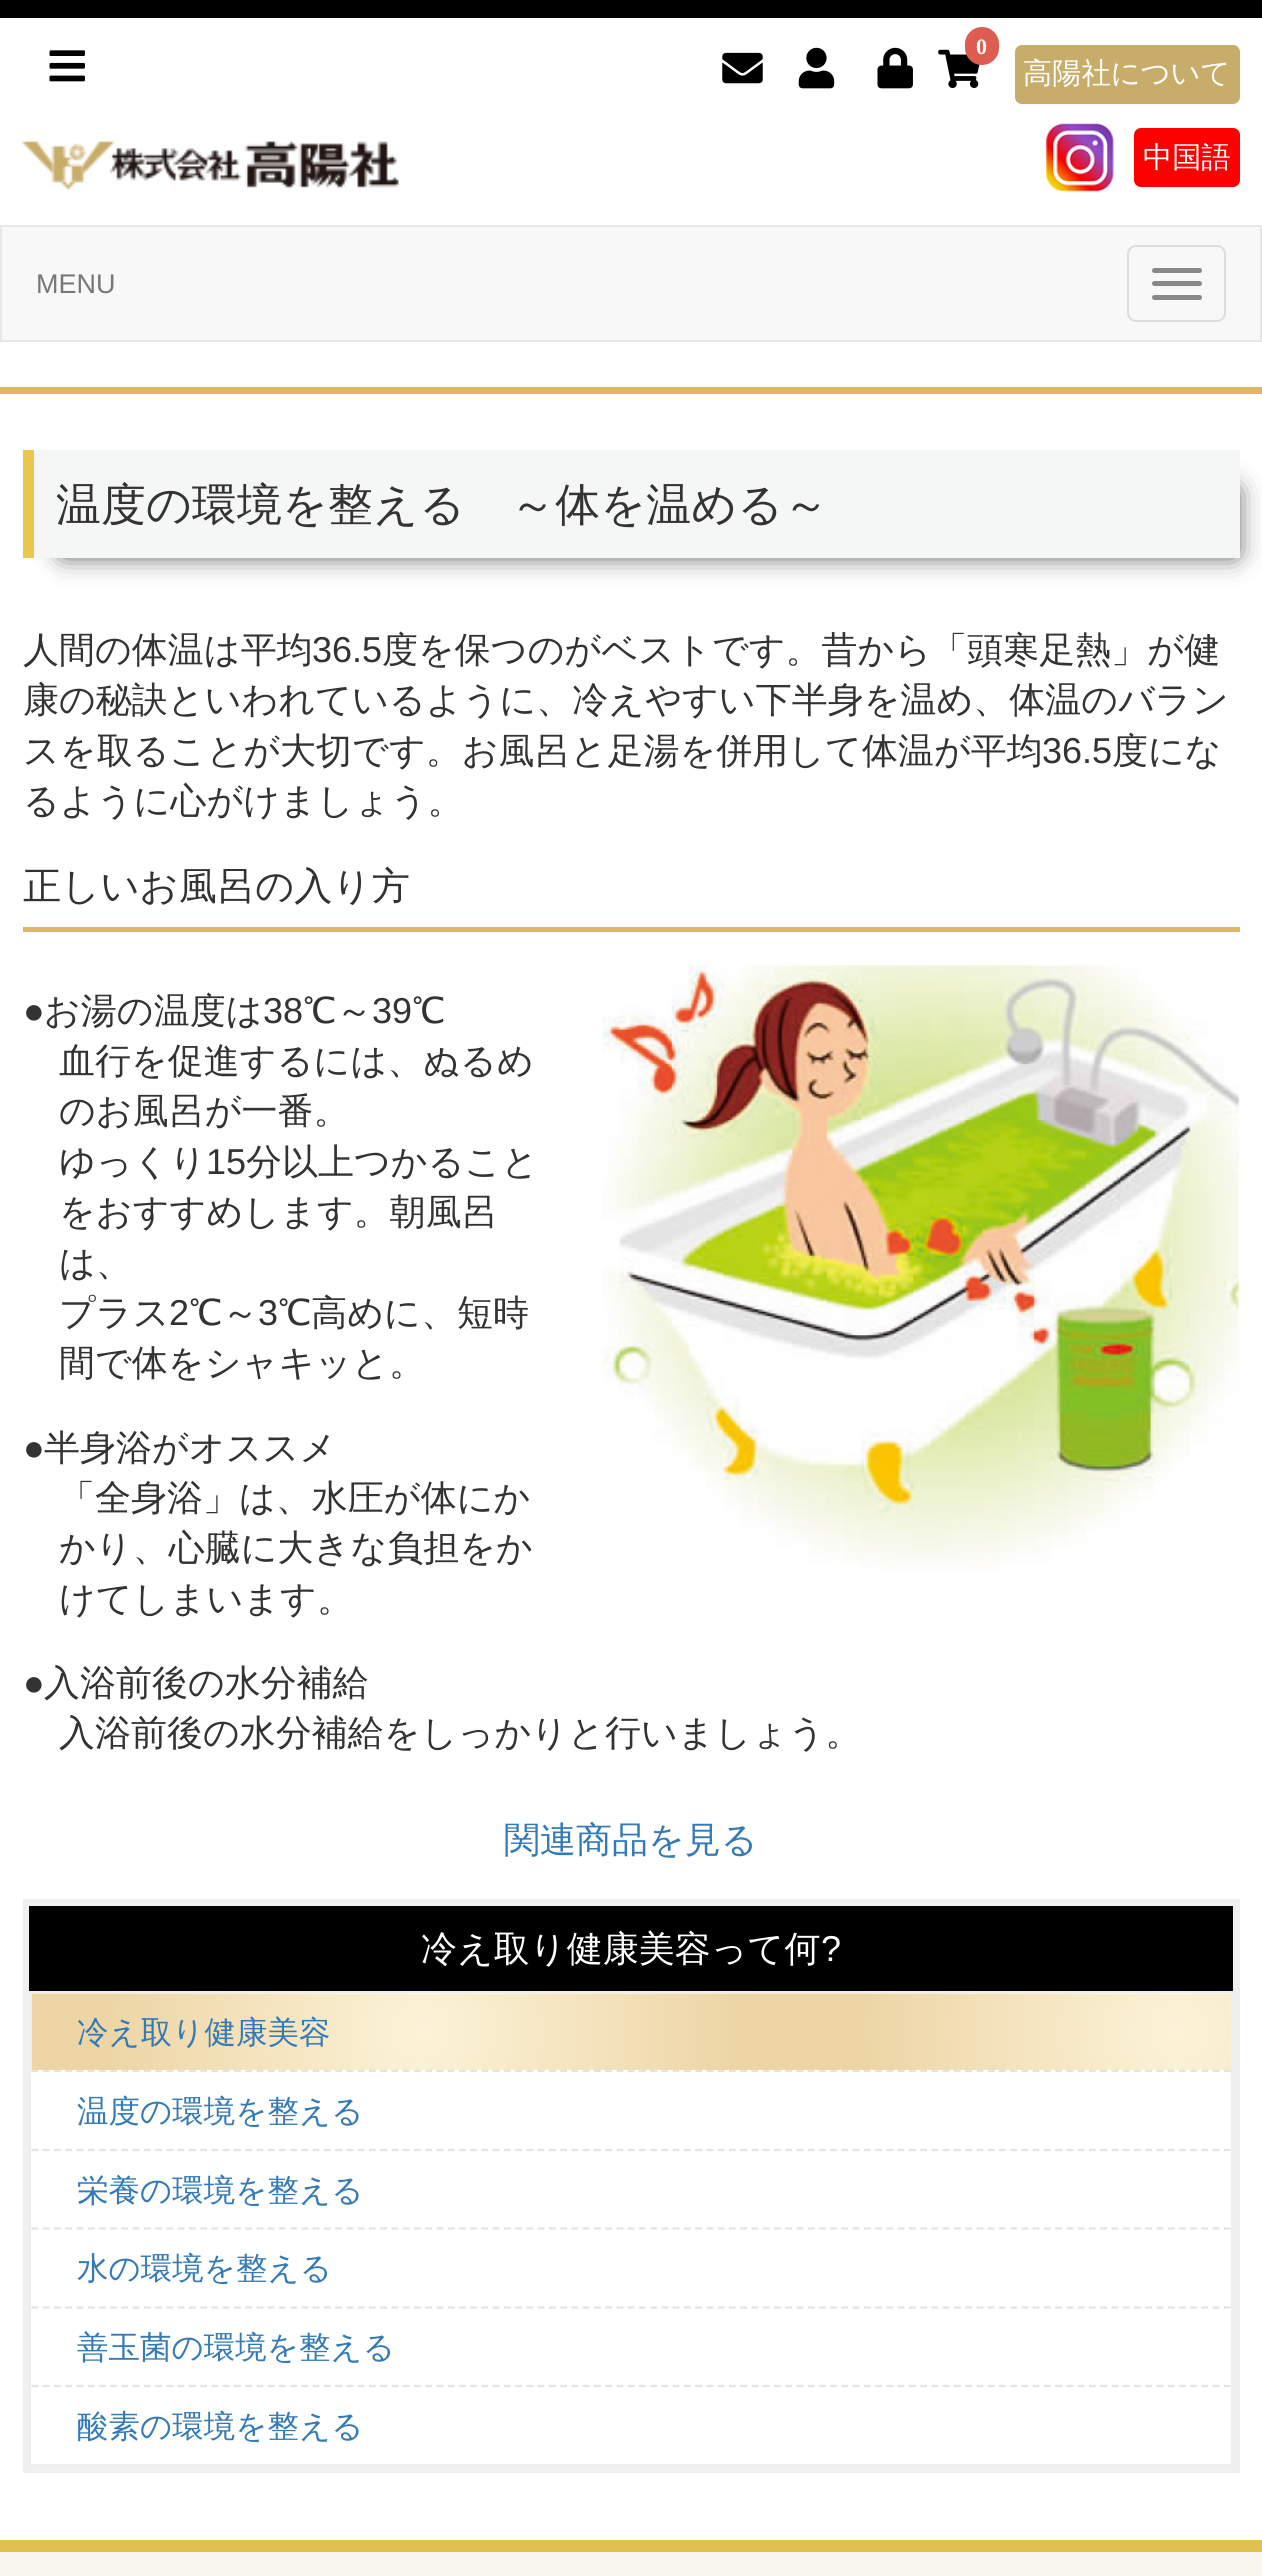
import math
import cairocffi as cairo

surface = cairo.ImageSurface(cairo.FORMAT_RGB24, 1262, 2576)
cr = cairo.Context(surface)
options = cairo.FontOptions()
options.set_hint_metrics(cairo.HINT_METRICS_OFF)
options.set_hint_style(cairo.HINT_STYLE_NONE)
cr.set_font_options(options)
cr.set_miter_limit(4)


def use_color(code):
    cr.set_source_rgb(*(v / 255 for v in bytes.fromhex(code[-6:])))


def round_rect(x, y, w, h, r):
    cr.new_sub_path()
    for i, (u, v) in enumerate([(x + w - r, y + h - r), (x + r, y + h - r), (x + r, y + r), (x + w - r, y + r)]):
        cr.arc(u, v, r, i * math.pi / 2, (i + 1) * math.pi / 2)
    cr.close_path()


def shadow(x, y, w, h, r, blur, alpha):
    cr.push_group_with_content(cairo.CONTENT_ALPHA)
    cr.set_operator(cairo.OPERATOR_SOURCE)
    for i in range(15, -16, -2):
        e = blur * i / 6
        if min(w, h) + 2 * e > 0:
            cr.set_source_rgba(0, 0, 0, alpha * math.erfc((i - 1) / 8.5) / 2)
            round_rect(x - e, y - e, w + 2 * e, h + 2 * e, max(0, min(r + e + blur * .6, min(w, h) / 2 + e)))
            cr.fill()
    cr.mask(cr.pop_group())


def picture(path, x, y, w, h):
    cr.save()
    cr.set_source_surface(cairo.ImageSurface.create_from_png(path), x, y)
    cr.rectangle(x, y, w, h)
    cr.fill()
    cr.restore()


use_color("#ffffff")
cr.paint()
use_color("#000000")
cr.rectangle(0, 0, 1262, 18)
cr.fill()
use_color("#e0b663")
cr.rectangle(0, 387, 1262, 7)
cr.fill()
picture("img1.png", 49, 50, 36, 32)
picture("img2.png", 722, 52, 41, 32)
picture("img3.png", 798, 47, 37, 42)
picture("img4.png", 877, 47, 36, 42)
picture("img5.png", 938, 49, 42, 39)
use_color("#de5d50")
round_rect(965, 27, 34, 38, 17)
cr.fill()
cr.select_font_face("Liberation Serif", cairo.FONT_SLANT_NORMAL, cairo.FONT_WEIGHT_BOLD)
cr.set_font_size(22)
use_color("#ffffff")
cr.move_to(976, 54)
cr.show_text("0")
use_color("#c8ad6a")
round_rect(1015, 45, 225, 59, 7)
cr.fill()
cr.select_font_face("WenQuanYi Zen Hei Medium")
cr.set_font_size(29.25)
use_color("#ffffff")
cr.move_to(1023, 83)
cr.show_text("高陽社について")
picture("img6.png", 22, 141, 377, 49)
picture("img7.png", 1046, 123, 68, 69)
use_color("#ff0000")
round_rect(1134, 128, 106, 59, 7)
cr.fill()
use_color("#ffffff")
cr.move_to(1143, 167)
cr.show_text("中国語")
use_color("#f8f8f8")
cr.rectangle(1, 226, 1260, 115)
cr.fill_preserve()
use_color("#e7e7e7")
cr.stroke()
cr.select_font_face("Liberation Sans")
cr.set_font_size(27)
use_color("#777777")
cr.move_to(36, 293)
cr.show_text("MENU")
round_rect(1128, 246, 97, 75, 8)
use_color("#dddddd")
cr.stroke()
use_color("#888888")
round_rect(1152, 268, 50, 5, 2.5)
cr.fill()
round_rect(1152, 281, 50, 5, 2.5)
cr.fill()
round_rect(1152, 295, 50, 5, 2.5)
cr.fill()
use_color("#333333")
shadow(63, 491, 1172, 63, 0, 13.5, 1)
use_color("#f5f6f6")
cr.rectangle(34, 450, 1206, 108)
cr.fill()
use_color("#ebc64c")
cr.rectangle(23, 450, 11, 108)
cr.fill()
cr.select_font_face("WenQuanYi Zen Hei Medium")
cr.set_font_size(45)
use_color("#333333")
cr.move_to(56, 520)
cr.show_text("温度の環境を整える　～体を温める～")
cr.set_font_size(36)
cr.move_to(23, 662)
cr.show_text("人間の体温は平均")
cr.select_font_face("Liberation Sans")
cr.move_to(312, 662)
cr.show_text("36.5")
cr.select_font_face("WenQuanYi Zen Hei Medium")
cr.move_to(382, 662)
cr.show_text("度を保つのがベストです。昔から「頭寒足熱」が健")
cr.move_to(23, 712)
cr.show_text("康の秘訣といわれているように、冷えやすい下半身を温め、体温のバラン")
cr.move_to(23, 763)
cr.show_text("スを取ることが大切です。お風呂と足湯を併用して体温が平均")
cr.select_font_face("Liberation Sans")
cr.move_to(1042, 763)
cr.show_text("36.5")
cr.select_font_face("WenQuanYi Zen Hei Medium")
cr.move_to(1112, 763)
cr.show_text("度にな")
cr.move_to(23, 813)
cr.show_text("るように心がけましょう。")
use_color("#e0b663")
cr.rectangle(23, 927, 1217, 5)
cr.fill()
cr.set_font_size(38.25)
use_color("#333333")
cr.move_to(23, 899)
cr.show_text("正しいお風呂の入り方")
cr.select_font_face("Liberation Sans")
cr.set_font_size(36)
cr.move_to(23, 1023)
cr.show_text("●")
cr.select_font_face("WenQuanYi Zen Hei Medium")
cr.move_to(44, 1023)
cr.show_text("お湯の温度は")
cr.select_font_face("Liberation Sans")
cr.move_to(263, 1023)
cr.show_text("38")
cr.select_font_face("WenQuanYi Zen Hei Medium")
cr.move_to(303, 1023)
cr.show_text("℃～")
cr.select_font_face("Liberation Sans")
cr.move_to(372, 1023)
cr.show_text("39")
cr.select_font_face("WenQuanYi Zen Hei Medium")
cr.move_to(412, 1023)
cr.show_text("℃")
cr.move_to(59, 1073)
cr.show_text("血行を促進するには、ぬるめ")
cr.move_to(59, 1123)
cr.show_text("のお風呂が一番。")
cr.move_to(59, 1174)
cr.show_text("ゆっくり")
cr.select_font_face("Liberation Sans")
cr.move_to(206, 1174)
cr.show_text("15")
cr.select_font_face("WenQuanYi Zen Hei Medium")
cr.move_to(246, 1174)
cr.show_text("分以上つかること")
cr.move_to(59, 1224)
cr.show_text("をおすすめします。朝風呂")
cr.move_to(59, 1275)
cr.show_text("は、")
cr.move_to(59, 1325)
cr.show_text("プラス")
cr.select_font_face("Liberation Sans")
cr.move_to(169, 1325)
cr.show_text("2")
cr.select_font_face("WenQuanYi Zen Hei Medium")
cr.move_to(189, 1325)
cr.show_text("℃～")
cr.select_font_face("Liberation Sans")
cr.move_to(258, 1325)
cr.show_text("3")
cr.select_font_face("WenQuanYi Zen Hei Medium")
cr.move_to(278, 1325)
cr.show_text("℃高めに、短時")
cr.move_to(59, 1375)
cr.show_text("間で体をシャキッと。")
picture("img8.png", 602, 965, 638, 604)
cr.select_font_face("Liberation Sans")
cr.move_to(23, 1460)
cr.show_text("●")
cr.select_font_face("WenQuanYi Zen Hei Medium")
cr.move_to(44, 1460)
cr.show_text("半身浴がオススメ")
cr.move_to(59, 1510)
cr.show_text("「全身浴」は、水圧が体にか")
cr.move_to(59, 1560)
cr.show_text("かり、心臓に大きな負担をか")
cr.move_to(59, 1611)
cr.show_text("けてしまいます。")
cr.select_font_face("Liberation Sans")
cr.move_to(23, 1695)
cr.show_text("●")
cr.select_font_face("WenQuanYi Zen Hei Medium")
cr.move_to(44, 1695)
cr.show_text("入浴前後の水分補給")
cr.move_to(59, 1745)
cr.show_text("入浴前後の水分補給をしっかりと行いましょう。")
use_color("#337ab7")
cr.move_to(504, 1852)
cr.show_text("関連商品を見る")
cr.rectangle(26.5, 1902.5, 1210, 567)
use_color("#f0f0f0")
cr.set_line_width(7)
cr.stroke()
use_color("#000000")
cr.rectangle(29, 1906, 1204, 85)
cr.fill()
use_color("#ffffff")
cr.move_to(421, 1961)
cr.show_text("冷え取り健康美容って何")
cr.select_font_face("Liberation Sans")
cr.move_to(821, 1961)
cr.show_text("?")
cr.rectangle(30, 1992, 1202, 473)
use_color("#eeeeee")
cr.set_line_width(2)
cr.stroke()
picture("img9.png", 31, 1993, 1200, 77)
cr.select_font_face("WenQuanYi Zen Hei Medium")
cr.set_font_size(31.5)
use_color("#337ab7")
cr.move_to(77, 2043)
cr.show_text("冷え取り健康美容")
cr.new_path()
cr.move_to(31.5, 2071)
cr.line_to(1231, 2071)
use_color("#e2e3e3")
cr.set_line_width(2.2)
cr.set_dash([6.75, 4.5])
cr.stroke()
use_color("#337ab7")
cr.move_to(77, 2122)
cr.show_text("温度の環境を整える")
cr.new_path()
cr.move_to(31.5, 2150)
cr.line_to(1231, 2150)
use_color("#e2e3e3")
cr.stroke()
use_color("#337ab7")
cr.move_to(77, 2201)
cr.show_text("栄養の環境を整える")
cr.new_path()
cr.move_to(31.5, 2228.5)
cr.line_to(1231, 2228.5)
use_color("#e2e3e3")
cr.stroke()
use_color("#337ab7")
cr.move_to(77, 2279)
cr.show_text("水の環境を整える")
cr.new_path()
cr.move_to(31.5, 2307.5)
cr.line_to(1231, 2307.5)
use_color("#e2e3e3")
cr.stroke()
use_color("#337ab7")
cr.move_to(77, 2358)
cr.show_text("善玉菌の環境を整える")
cr.new_path()
cr.move_to(31.5, 2386)
cr.line_to(1231, 2386)
use_color("#e2e3e3")
cr.stroke()
use_color("#337ab7")
cr.move_to(77, 2437)
cr.show_text("酸素の環境を整える")
use_color("#dec14f")
cr.rectangle(0, 2540, 1262, 12)
cr.fill()
use_color("#f7f7ef")
cr.rectangle(0, 2552, 1262, 24)
cr.fill()
surface.write_to_png("result.png")
